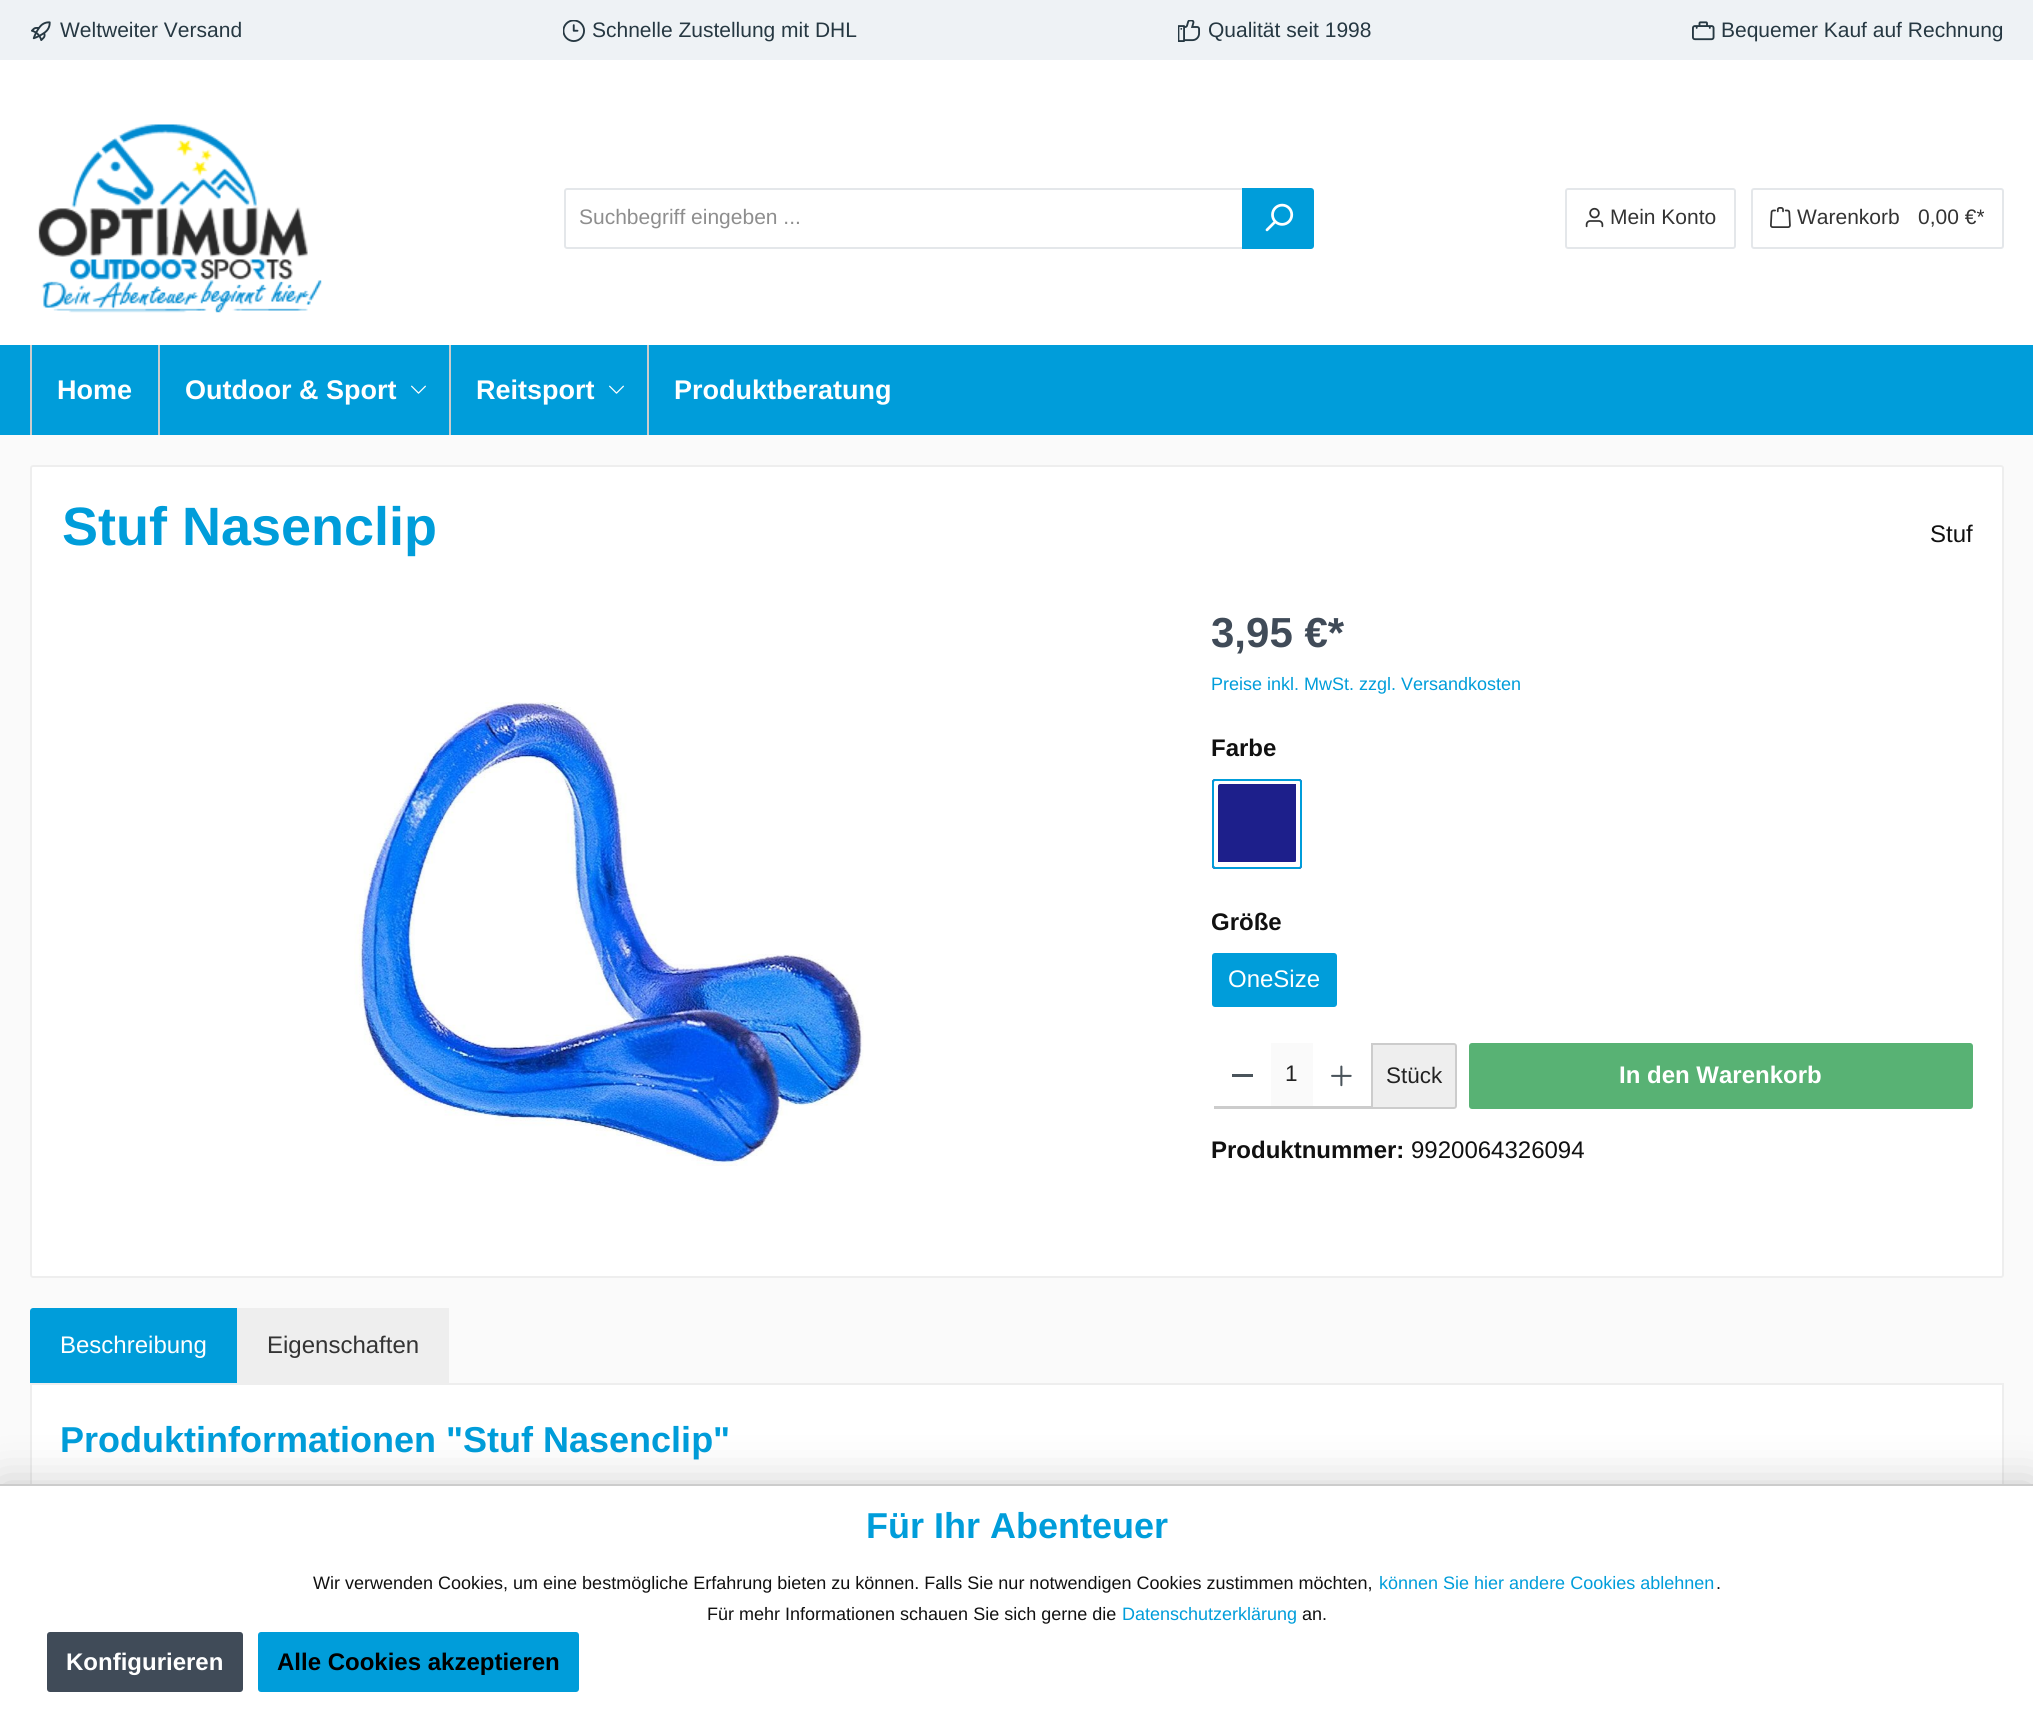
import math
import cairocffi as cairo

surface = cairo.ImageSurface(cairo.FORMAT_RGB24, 2033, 1711)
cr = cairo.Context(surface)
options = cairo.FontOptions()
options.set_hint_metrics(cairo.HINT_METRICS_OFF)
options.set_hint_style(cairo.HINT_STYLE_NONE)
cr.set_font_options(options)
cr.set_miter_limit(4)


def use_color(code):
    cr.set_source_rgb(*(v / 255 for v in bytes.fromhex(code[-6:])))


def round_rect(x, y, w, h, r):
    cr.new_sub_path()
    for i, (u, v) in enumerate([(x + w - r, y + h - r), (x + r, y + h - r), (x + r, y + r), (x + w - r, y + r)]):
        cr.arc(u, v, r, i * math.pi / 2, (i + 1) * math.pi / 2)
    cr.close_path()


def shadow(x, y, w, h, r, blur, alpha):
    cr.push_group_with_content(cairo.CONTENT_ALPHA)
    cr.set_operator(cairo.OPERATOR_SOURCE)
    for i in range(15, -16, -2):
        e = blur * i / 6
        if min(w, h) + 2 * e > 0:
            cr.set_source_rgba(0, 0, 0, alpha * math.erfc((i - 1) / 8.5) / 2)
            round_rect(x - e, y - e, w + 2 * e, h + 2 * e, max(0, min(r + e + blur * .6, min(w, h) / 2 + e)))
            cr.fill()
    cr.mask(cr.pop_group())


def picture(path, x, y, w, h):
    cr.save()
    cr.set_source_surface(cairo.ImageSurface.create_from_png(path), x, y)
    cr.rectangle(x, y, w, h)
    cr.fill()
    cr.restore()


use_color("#fafafa")
cr.paint()
use_color("#eef2f5")
cr.rectangle(0, 0, 2033, 60)
cr.fill()
picture("img1.png", 31, 21, 20, 20)
cr.select_font_face("Liberation Sans")
cr.set_font_size(21)
use_color("#263842")
cr.move_to(60, 37)
cr.show_text("Weltweiter Versand")
picture("img2.png", 563, 20, 22, 22)
cr.move_to(592, 37)
cr.show_text("Schnelle Zustellung mit DHL")
picture("img3.png", 1178, 20, 22, 22)
cr.move_to(1208, 37)
cr.show_text("Qualität seit 1998")
picture("img4.png", 1692, 21, 23, 20)
cr.move_to(1721, 37)
cr.show_text("Bequemer Kauf auf Rechnung")
use_color("#ffffff")
cr.rectangle(0, 60, 2033, 285)
cr.fill()
picture("img5.png", 38, 124, 284, 189)
cr.new_path()
cr.move_to(567, 189)
cr.line_to(1243, 189)
cr.line_to(1243, 248)
cr.line_to(567, 248)
cr.curve_to(566, 248, 565, 247, 565, 246)
cr.line_to(565, 191)
cr.curve_to(565, 190, 566, 189, 567, 189)
cr.close_path()
use_color("#e4e7ea")
cr.stroke()
use_color("#8e8e8e")
cr.move_to(579, 224)
cr.show_text("Suchbegriff eingeben ...")
use_color("#009dda")
cr.new_path()
cr.move_to(1243, 189)
cr.line_to(1311, 189)
cr.curve_to(1312, 189, 1313, 190, 1313, 191)
cr.line_to(1313, 246)
cr.curve_to(1313, 247, 1312, 248, 1311, 248)
cr.line_to(1243, 248)
cr.close_path()
cr.fill_preserve()
cr.stroke()
picture("img6.png", 1265, 203, 29, 29)
round_rect(1566, 189, 169, 59, 2)
use_color("#e4e7ea")
cr.stroke()
picture("img7.png", 1585, 207, 19, 21)
use_color("#333333")
cr.move_to(1610, 224)
cr.show_text("Mein Konto")
round_rect(1752, 189, 251, 59, 2)
use_color("#e4e7ea")
cr.stroke()
picture("img8.png", 1770, 207, 21, 21)
use_color("#333333")
cr.move_to(1797, 224)
cr.show_text("Warenkorb")
cr.move_to(1918, 224)
cr.show_text("0,00 €*")
use_color("#009dda")
cr.rectangle(0, 345, 2033, 90)
cr.fill()
use_color("#cccccc")
cr.rectangle(30, 345, 2, 90)
cr.fill()
cr.select_font_face("Liberation Sans", cairo.FONT_SLANT_NORMAL, cairo.FONT_WEIGHT_BOLD)
cr.set_font_size(27)
use_color("#ffffff")
cr.move_to(57, 399)
cr.show_text("Home")
use_color("#cccccc")
cr.rectangle(158, 345, 2, 90)
cr.fill()
use_color("#ffffff")
cr.move_to(185, 399)
cr.show_text("Outdoor & Sport")
picture("img9.png", 411, 385, 15, 9)
use_color("#cccccc")
cr.rectangle(449, 345, 2, 90)
cr.fill()
use_color("#ffffff")
cr.move_to(476, 399)
cr.show_text("Reitsport")
picture("img9.png", 609, 385, 15, 9)
use_color("#cccccc")
cr.rectangle(647, 345, 2, 90)
cr.fill()
use_color("#ffffff")
cr.move_to(674, 399)
cr.show_text("Produktberatung")
round_rect(31, 466, 1972, 811, 2)
cr.fill_preserve()
use_color("#eeeeee")
cr.stroke()
cr.set_font_size(54)
use_color("#009dda")
cr.move_to(62, 545)
cr.show_text("Stuf Nasenclip")
cr.select_font_face("Liberation Sans")
cr.set_font_size(24)
use_color("#111111")
cr.move_to(1930, 542)
cr.show_text("Stuf")
picture("img10.png", 354, 702, 510, 464)
cr.select_font_face("Liberation Sans", cairo.FONT_SLANT_NORMAL, cairo.FONT_WEIGHT_BOLD)
cr.set_font_size(42)
use_color("#404b58")
cr.move_to(1211, 647)
cr.show_text("3,95 €*")
cr.select_font_face("Liberation Sans")
cr.set_font_size(18)
use_color("#009dda")
cr.move_to(1211, 690)
cr.show_text("Preise inkl. MwSt. zzgl. Versandkosten")
cr.select_font_face("Liberation Sans", cairo.FONT_SLANT_NORMAL, cairo.FONT_WEIGHT_BOLD)
cr.set_font_size(24)
use_color("#111111")
cr.move_to(1211, 756)
cr.show_text("Farbe")
use_color("#1d1f8b")
round_rect(1212, 779, 90, 90, 3)
cr.fill()
use_color("#ffffff")
cr.new_path()
cr.move_to(1214, 862)
cr.line_to(1214, 866)
cr.curve_to(1214, 866, 1215, 867, 1216, 867)
cr.line_to(1300, 867)
cr.curve_to(1300, 867, 1301, 866, 1301, 866)
cr.line_to(1301, 782)
cr.curve_to(1301, 781, 1300, 780, 1300, 780)
cr.line_to(1296, 780)
cr.line_to(1296, 861)
cr.curve_to(1296, 862, 1295, 862, 1294, 862)
cr.close_path()
cr.fill()
cr.new_path()
cr.move_to(1220, 784)
cr.line_to(1301, 784)
cr.line_to(1301, 782)
cr.curve_to(1301, 781, 1300, 780, 1300, 780)
cr.line_to(1216, 780)
cr.curve_to(1215, 780, 1214, 781, 1214, 782)
cr.line_to(1214, 866)
cr.curve_to(1214, 866, 1215, 867, 1216, 867)
cr.line_to(1218, 867)
cr.line_to(1218, 786)
cr.curve_to(1218, 785, 1219, 784, 1220, 784)
cr.close_path()
cr.fill()
round_rect(1213, 780, 88, 88, 2)
use_color("#009dda")
cr.stroke()
use_color("#111111")
cr.move_to(1211, 930)
cr.show_text("Größe")
use_color("#009dda")
round_rect(1213, 954, 123, 52, 2)
cr.fill_preserve()
cr.stroke()
cr.select_font_face("Liberation Sans")
use_color("#ffffff")
cr.move_to(1228, 987)
cr.show_text("OneSize")
use_color("#4a545b")
cr.rectangle(1232, 1074, 21, 3)
cr.fill()
use_color("#fafafa")
cr.rectangle(1271, 1043, 42, 63)
cr.fill()
use_color("#eeeeee")
cr.new_path()
cr.move_to(1372, 1044)
cr.line_to(1454, 1044)
cr.curve_to(1455, 1044, 1456, 1045, 1456, 1046)
cr.line_to(1456, 1106)
cr.curve_to(1456, 1107, 1455, 1108, 1454, 1108)
cr.line_to(1372, 1108)
cr.close_path()
cr.fill_preserve()
use_color("#cccccc")
cr.stroke()
cr.rectangle(1214, 1106, 159, 3)
cr.fill()
cr.set_font_size(22.5)
use_color("#222222")
cr.move_to(1285, 1081)
cr.show_text("1")
picture("img11.png", 1331, 1065, 21, 22)
cr.move_to(1386, 1083)
cr.show_text("Stück")
use_color("#58b274")
round_rect(1470, 1044, 502, 64, 2)
cr.fill_preserve()
cr.stroke()
cr.select_font_face("Liberation Sans", cairo.FONT_SLANT_NORMAL, cairo.FONT_WEIGHT_BOLD)
cr.set_font_size(24)
use_color("#ffffff")
cr.move_to(1619, 1083)
cr.show_text("In den Warenkorb")
use_color("#111111")
cr.move_to(1211, 1158)
cr.show_text("Produktnummer:")
cr.select_font_face("Liberation Sans")
cr.move_to(1411, 1158)
cr.show_text("9920064326094")
use_color("#ffffff")
cr.new_path()
cr.move_to(36, 1309)
cr.line_to(2001, 1309)
cr.curve_to(2002, 1309, 2003, 1310, 2003, 1311)
cr.line_to(2003, 1578)
cr.curve_to(2003, 1579, 2002, 1580, 2001, 1580)
cr.line_to(33, 1580)
cr.curve_to(32, 1580, 31, 1579, 31, 1578)
cr.line_to(31, 1314)
cr.curve_to(31, 1311, 33, 1309, 36, 1309)
cr.close_path()
cr.fill_preserve()
use_color("#eeeeee")
cr.stroke()
use_color("#fafafa")
cr.new_path()
cr.move_to(36, 1308)
cr.line_to(2002.5, 1308)
cr.curve_to(2003.5, 1308, 2004, 1308.5, 2004, 1309.5)
cr.line_to(2004, 1385)
cr.line_to(30, 1385)
cr.line_to(30, 1314)
cr.curve_to(30, 1310.5, 32.5, 1308, 36, 1308)
cr.close_path()
cr.fill()
use_color("#eeeeee")
cr.rectangle(30, 1383, 1974, 2)
cr.fill()
use_color("#009dda")
cr.new_path()
cr.move_to(33, 1308)
cr.line_to(237, 1308)
cr.line_to(237, 1380)
cr.line_to(30, 1380)
cr.line_to(30, 1311)
cr.curve_to(30, 1309.5, 31.5, 1308, 33, 1308)
cr.close_path()
cr.fill()
cr.rectangle(30, 1380, 207, 3)
cr.fill()
use_color("#ffffff")
cr.move_to(60, 1353)
cr.show_text("Beschreibung")
use_color("#eeeeee")
cr.rectangle(237, 1308, 212, 75)
cr.fill()
use_color("#333333")
cr.move_to(267, 1353)
cr.show_text("Eigenschaften")
cr.select_font_face("Liberation Sans", cairo.FONT_SLANT_NORMAL, cairo.FONT_WEIGHT_BOLD)
cr.set_font_size(36)
use_color("#009dda")
cr.move_to(60, 1452)
cr.show_text("Produktinformationen \"Stuf Nasenclip\"")
use_color("#000000")
shadow(0, 1484, 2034, 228, 0, 22.5, 0.2)
use_color("#ffffff")
cr.rectangle(0, 1486, 2033, 225)
cr.fill()
use_color("#cccccc")
cr.rectangle(0, 1484, 2033, 2)
cr.fill()
use_color("#009dda")
cr.move_to(866, 1538)
cr.show_text("Für Ihr Abenteuer")
cr.select_font_face("Liberation Sans")
cr.set_font_size(18)
use_color("#111111")
cr.move_to(313, 1589)
cr.show_text("Wir verwenden Cookies, um eine bestmögliche Erfahrung bieten zu können. Falls Sie nur notwendigen Cookies zustimmen möchten,")
use_color("#009dda")
cr.move_to(1379, 1589)
cr.show_text("können Sie hier andere Cookies ablehnen")
use_color("#111111")
cr.move_to(1716, 1589)
cr.show_text(".")
cr.move_to(707, 1620)
cr.show_text("Für mehr Informationen schauen Sie sich gerne die")
use_color("#009dda")
cr.move_to(1122, 1620)
cr.show_text("Datenschutzerklärung")
use_color("#111111")
cr.move_to(1302, 1620)
cr.show_text("an.")
use_color("#404b58")
round_rect(48, 1633, 194, 58, 2)
cr.fill_preserve()
cr.stroke()
cr.select_font_face("Liberation Sans", cairo.FONT_SLANT_NORMAL, cairo.FONT_WEIGHT_BOLD)
cr.set_font_size(24)
use_color("#ffffff")
cr.move_to(66, 1670)
cr.show_text("Konfigurieren")
use_color("#009dda")
round_rect(259, 1633, 319, 58, 2)
cr.fill_preserve()
cr.stroke()
use_color("#000000")
cr.move_to(277, 1670)
cr.show_text("Alle Cookies akzeptieren")
surface.write_to_png("result.png")
